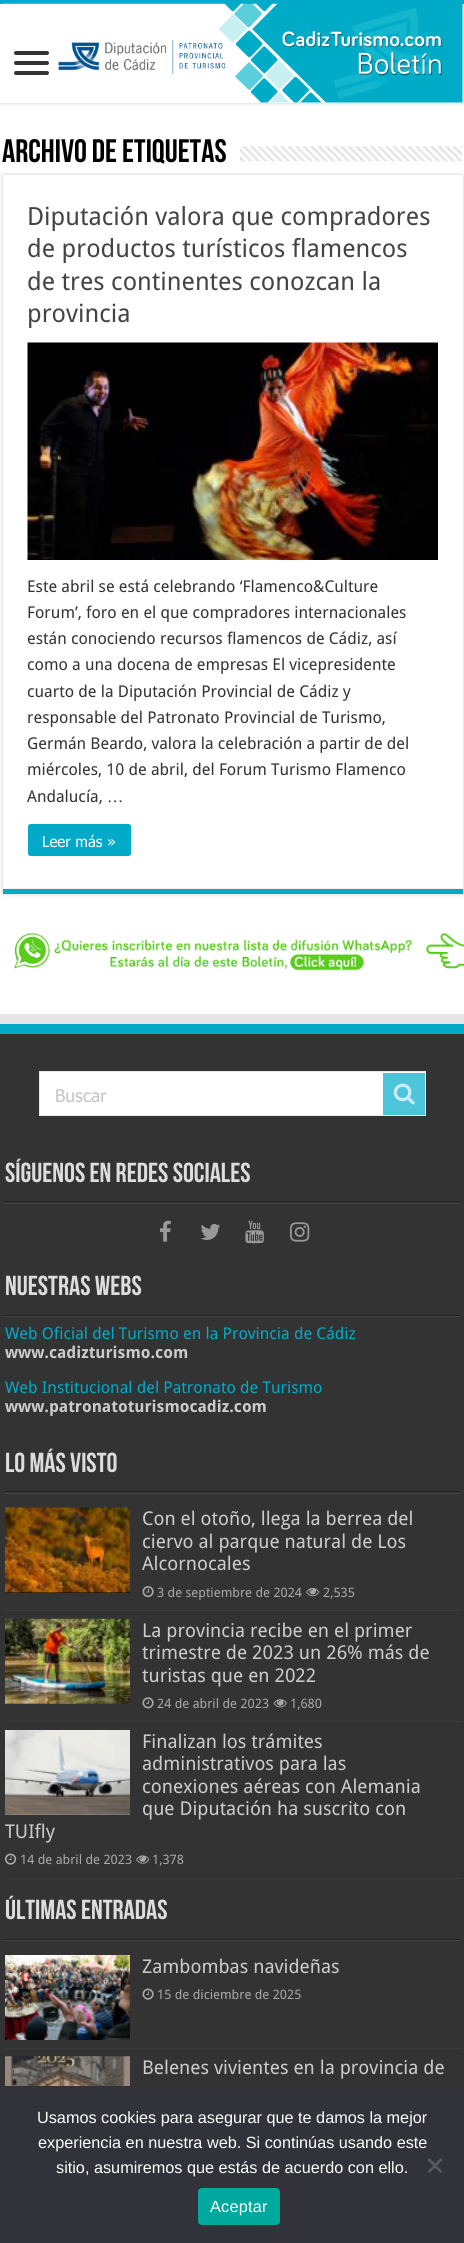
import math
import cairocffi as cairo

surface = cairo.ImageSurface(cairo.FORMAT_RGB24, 464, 2243)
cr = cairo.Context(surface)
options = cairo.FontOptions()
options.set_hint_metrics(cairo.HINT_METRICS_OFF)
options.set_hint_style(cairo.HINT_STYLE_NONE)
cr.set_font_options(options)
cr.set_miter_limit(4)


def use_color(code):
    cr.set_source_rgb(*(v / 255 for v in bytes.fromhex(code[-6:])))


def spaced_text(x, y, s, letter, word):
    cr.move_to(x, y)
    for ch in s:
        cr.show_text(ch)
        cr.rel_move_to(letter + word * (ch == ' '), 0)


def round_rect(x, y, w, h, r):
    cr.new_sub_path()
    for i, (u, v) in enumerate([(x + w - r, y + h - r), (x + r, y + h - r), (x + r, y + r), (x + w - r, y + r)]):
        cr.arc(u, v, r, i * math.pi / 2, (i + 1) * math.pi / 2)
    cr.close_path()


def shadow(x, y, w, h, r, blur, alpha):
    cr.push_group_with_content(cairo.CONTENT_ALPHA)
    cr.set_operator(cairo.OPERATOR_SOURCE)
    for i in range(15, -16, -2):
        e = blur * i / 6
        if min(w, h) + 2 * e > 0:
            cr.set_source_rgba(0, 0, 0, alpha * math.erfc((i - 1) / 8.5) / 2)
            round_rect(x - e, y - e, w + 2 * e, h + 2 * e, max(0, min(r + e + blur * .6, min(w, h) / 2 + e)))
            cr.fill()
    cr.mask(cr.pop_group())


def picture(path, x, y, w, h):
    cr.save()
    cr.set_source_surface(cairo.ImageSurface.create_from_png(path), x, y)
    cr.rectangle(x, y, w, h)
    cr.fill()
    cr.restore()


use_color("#ffffff")
cr.paint()
use_color("#cacaca")
shadow(0, 0, 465, 103, 0, 2, 1)
use_color("#ffffff")
cr.rectangle(0, 4, 464, 99)
cr.fill()
use_color("#00aac8")
cr.rectangle(0, 0, 464, 4)
cr.fill()
picture("img1.png", 2, 3, 461, 100)
use_color("#333333")
round_rect(14, 51, 35, 4, 2)
cr.fill()
round_rect(14, 61, 35, 4, 2)
cr.fill()
round_rect(14, 71, 35, 4, 2)
cr.fill()
cr.select_font_face("Bebas Neue", cairo.FONT_SLANT_NORMAL, cairo.FONT_WEIGHT_BOLD)
cr.set_font_size(32.5)
use_color("#000000")
cr.move_to(2, 162)
cr.show_text("Archivo de etiquetas")
picture("img2.png", 240, 146, 223, 16)
use_color("#cacaca")
shadow(3, 175, 460, 719, 0, 2, 1)
use_color("#ffffff")
cr.rectangle(3, 175, 460, 713)
cr.fill()
use_color("#00aac8")
cr.rectangle(3, 889, 460, 5)
cr.fill()
use_color("#f2f2f2")
cr.rectangle(3, 888, 460, 1)
cr.fill()
cr.select_font_face("Droid Sans")
cr.set_font_size(25)
use_color("#444444")
cr.move_to(27, 225)
cr.show_text("Diputación valora que compradores")
cr.move_to(27, 257)
cr.show_text("de productos turísticos flamencos")
cr.move_to(27, 290)
cr.show_text("de tres continentes conozcan la")
cr.move_to(27, 322)
cr.show_text("provincia")
use_color("#000000")
cr.rectangle(437, 343, 1, 217)
cr.fill()
picture("img3.png", 27, 342, 411, 218)
cr.set_font_size(16.25)
use_color("#333333")
cr.move_to(27, 592)
cr.show_text("Este abril se está celebrando ‘Flamenco&Culture")
cr.move_to(27, 618)
cr.show_text("Forum’, foro en el que compradores internacionales")
cr.move_to(27, 644)
cr.show_text("están conociendo recursos flamencos de Cádiz, así")
cr.move_to(27, 670)
cr.show_text("como a una docena de empresas El vicepresidente")
cr.move_to(27, 697)
cr.show_text("cuarto de la Diputación Provincial de Cádiz y")
cr.move_to(27, 723)
cr.show_text("responsable del Patronato Provincial de Turismo,")
cr.move_to(27, 749)
cr.show_text("Germán Beardo, valora la celebración a partir de del")
cr.move_to(27, 775)
cr.show_text("miércoles, 10 de abril, del Forum Turismo Flamenco")
cr.move_to(27, 802)
cr.show_text("Andalucía,")
cr.select_font_face("Liberation Serif")
cr.move_to(107, 802)
cr.show_text("…")
use_color("#00aac8")
round_rect(28, 824, 103, 32, 2.5)
cr.fill()
cr.select_font_face("Tahoma")
cr.set_font_size(15)
use_color("#ffffff")
cr.move_to(42, 847)
cr.show_text("Leer más »")
picture("img4.png", 14, 933, 450, 38)
use_color("#e6e6e6")
cr.rectangle(0, 1014, 464, 10)
cr.fill()
use_color("#333333")
cr.rectangle(0, 1034, 464, 1052)
cr.fill()
use_color("#00aac8")
cr.rectangle(0, 1024, 464, 10)
cr.fill()
use_color("#ffffff")
cr.rectangle(39.5, 1071.5, 386, 44)
cr.fill_preserve()
use_color("#e8e8e8")
cr.set_line_width(1)
cr.stroke()
cr.set_font_size(17.5)
use_color("#c5c5c5")
cr.move_to(55, 1102)
cr.show_text("Buscar")
use_color("#4dc4d9")
cr.rectangle(383, 1073, 42, 42)
cr.fill()
picture("img5.png", 393, 1083, 22, 22)
use_color("#222222")
cr.rectangle(5, 1201, 455, 1)
cr.fill()
cr.select_font_face("Bebas Neue", cairo.FONT_SLANT_NORMAL, cairo.FONT_WEIGHT_BOLD)
cr.set_font_size(27.5)
use_color("#dddddd")
cr.move_to(5, 1182)
cr.show_text("Síguenos en Redes Sociales")
use_color("#444444")
cr.rectangle(5, 1203, 455, 1)
cr.fill()
picture("img6.png", 159, 1220, 12, 22)
picture("img7.png", 200, 1223, 20, 17)
picture("img8.png", 245, 1220, 19, 24)
picture("img9.png", 290, 1222, 20, 20)
use_color("#222222")
cr.rectangle(5, 1315, 455, 1)
cr.fill()
use_color("#dddddd")
cr.move_to(5, 1295)
cr.show_text("Nuestras Webs")
use_color("#444444")
cr.rectangle(5, 1316, 455, 1)
cr.fill()
cr.select_font_face("Droid Sans")
cr.set_font_size(16.25)
use_color("#00aac8")
cr.move_to(5, 1339)
cr.show_text("Web Oficial del Turismo en la Provincia de Cádiz")
cr.select_font_face("Droid Sans", cairo.FONT_SLANT_NORMAL, cairo.FONT_WEIGHT_BOLD)
use_color("#cccccc")
cr.move_to(5, 1358)
cr.show_text("www.cadizturismo.com")
cr.select_font_face("Droid Sans")
use_color("#00aac8")
cr.move_to(5, 1393)
cr.show_text("Web Institucional del Patronato de Turismo")
cr.select_font_face("Droid Sans", cairo.FONT_SLANT_NORMAL, cairo.FONT_WEIGHT_BOLD)
use_color("#cccccc")
cr.move_to(5, 1412)
cr.show_text("www.patronatoturismocadiz.com")
use_color("#222222")
cr.rectangle(5, 1491, 455, 1)
cr.fill()
cr.select_font_face("Bebas Neue", cairo.FONT_SLANT_NORMAL, cairo.FONT_WEIGHT_BOLD)
cr.set_font_size(27.5)
use_color("#dddddd")
cr.move_to(5, 1472)
cr.show_text("Lo más visto")
use_color("#444444")
cr.rectangle(5, 1493, 455, 1)
cr.fill()
use_color("#3c3c3c")
cr.rectangle(5, 1610, 455, 1)
cr.fill()
use_color("#000000")
cr.rectangle(5, 1592, 125, 1)
cr.fill()
picture("img10.png", 5, 1507, 125, 86)
cr.select_font_face("Droid Sans")
cr.set_font_size(19)
use_color("#cccccc")
cr.move_to(142, 1525)
cr.show_text("Con el otoño, llega la berrea del")
cr.move_to(142, 1548)
cr.show_text("ciervo al parque natural de Los")
cr.move_to(142, 1570)
cr.show_text("Alcornocales")
picture("img11.png", 142, 1586, 12, 12)
cr.set_font_size(13)
use_color("#aaaaaa")
cr.move_to(157, 1597)
cr.show_text("3 de septiembre de 2024")
picture("img12.png", 306, 1587, 14, 10)
cr.move_to(323, 1597)
cr.show_text("2,535")
use_color("#3c3c3c")
cr.rectangle(5, 1721, 455, 1)
cr.fill()
picture("img13.png", 5, 1618, 125, 86)
cr.set_font_size(19)
use_color("#cccccc")
cr.move_to(142, 1637)
cr.show_text("La provincia recibe en el primer")
cr.move_to(142, 1659)
cr.show_text("trimestre de 2023 un 26% más de")
cr.move_to(142, 1682)
cr.show_text("turistas que en 2022")
picture("img14.png", 142, 1697, 12, 12)
cr.set_font_size(13)
use_color("#aaaaaa")
cr.move_to(157, 1708)
cr.show_text("24 de abril de 2023")
picture("img15.png", 273, 1699, 14, 9)
cr.move_to(290, 1708)
cr.show_text("1,680")
use_color("#3c3c3c")
cr.rectangle(5, 1878, 455, 1)
cr.fill()
picture("img16.png", 5, 1730, 125, 85)
cr.set_font_size(19)
use_color("#cccccc")
cr.move_to(142, 1748)
cr.show_text("Finalizan los trámites")
cr.move_to(142, 1770)
cr.show_text("administrativos para las")
cr.move_to(142, 1793)
cr.show_text("conexiones aéreas con Alemania")
cr.move_to(142, 1815)
cr.show_text("que Diputación ha suscrito con")
cr.move_to(5, 1838)
cr.show_text("TUIfly")
picture("img17.png", 5, 1853, 12, 12)
cr.set_font_size(13)
use_color("#aaaaaa")
cr.move_to(20, 1864)
cr.show_text("14 de abril de 2023")
picture("img18.png", 136, 1855, 14, 9)
cr.move_to(152, 1864)
cr.show_text("1,378")
use_color("#222222")
cr.rectangle(5, 1939, 455, 1)
cr.fill()
cr.select_font_face("Bebas Neue", cairo.FONT_SLANT_NORMAL, cairo.FONT_WEIGHT_BOLD)
cr.set_font_size(27.5)
use_color("#dddddd")
cr.move_to(5, 1919)
cr.show_text("Últimas entradas")
use_color("#444444")
cr.rectangle(5, 1940, 455, 1)
cr.fill()
use_color("#3c3c3c")
cr.rectangle(5, 2048, 455, 1)
cr.fill()
picture("img19.png", 5, 1955, 125, 85)
cr.select_font_face("Droid Sans")
cr.set_font_size(19)
use_color("#cccccc")
cr.move_to(142, 1973)
cr.show_text("Zambombas navideñas")
picture("img20.png", 142, 1988, 12, 12)
cr.set_font_size(13)
use_color("#aaaaaa")
cr.move_to(157, 1999)
cr.show_text("15 de diciembre de 2025")
picture("img21.png", 5, 2056, 125, 30)
cr.set_font_size(19)
use_color("#cccccc")
cr.move_to(142, 2074)
cr.show_text("Belenes vivientes en la provincia de")
use_color("#32323a")
cr.rectangle(0, 2086, 464, 157)
cr.fill()
cr.select_font_face("Liberation Sans")
cr.set_font_size(16.25)
use_color("#ffffff")
cr.move_to(37, 2123)
cr.show_text("Usamos cookies para asegurar que te damos la mejor")
cr.move_to(38, 2148)
cr.show_text("experiencia en nuestra web. Si continúas usando este")
cr.move_to(56, 2173)
cr.show_text("sitio, asumiremos que estás de acuerdo con ello.")
use_color("#59595d")
cr.new_path()
cr.move_to(440.5, 2158)
cr.line_to(442.5, 2160)
cr.line_to(429.5, 2173)
cr.line_to(427.5, 2171.5)
cr.close_path()
cr.fill()
cr.new_path()
cr.move_to(427.5, 2160)
cr.line_to(429.5, 2158)
cr.line_to(442.5, 2171.5)
cr.line_to(440.5, 2173)
cr.close_path()
cr.fill()
use_color("#00a99d")
round_rect(198, 2188, 82, 37, 4)
cr.fill()
use_color("#ffffff")
spaced_text(210, 2212, "Aceptar", 0.25, 0)
surface.write_to_png("result.png")
